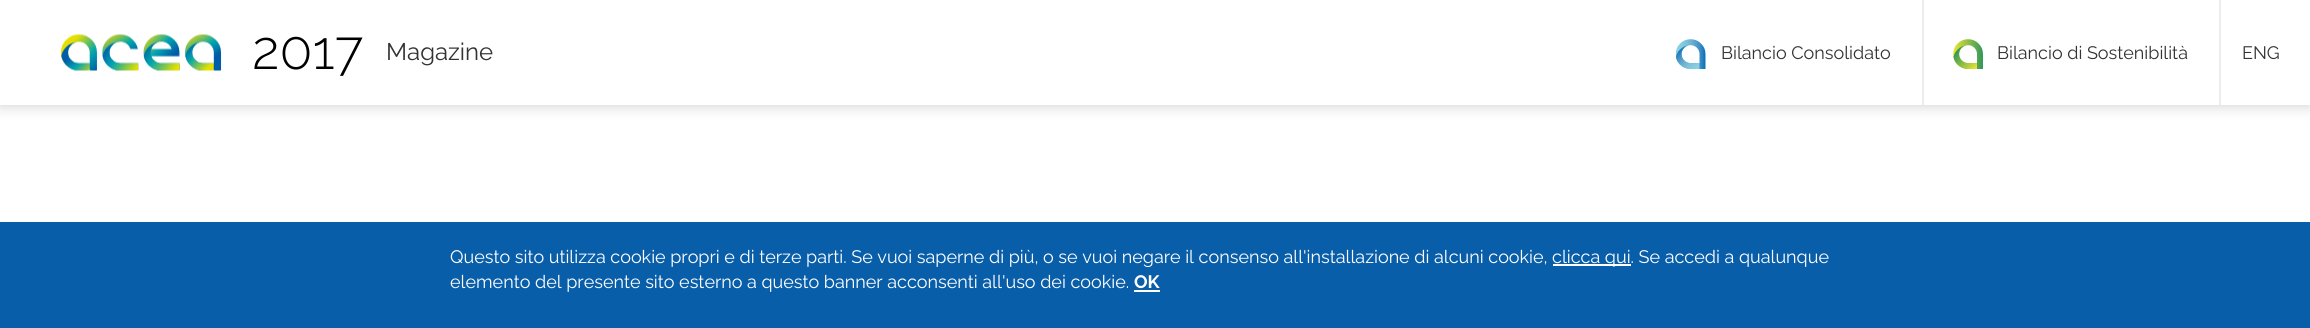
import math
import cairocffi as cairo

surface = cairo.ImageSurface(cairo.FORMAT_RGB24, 2310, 328)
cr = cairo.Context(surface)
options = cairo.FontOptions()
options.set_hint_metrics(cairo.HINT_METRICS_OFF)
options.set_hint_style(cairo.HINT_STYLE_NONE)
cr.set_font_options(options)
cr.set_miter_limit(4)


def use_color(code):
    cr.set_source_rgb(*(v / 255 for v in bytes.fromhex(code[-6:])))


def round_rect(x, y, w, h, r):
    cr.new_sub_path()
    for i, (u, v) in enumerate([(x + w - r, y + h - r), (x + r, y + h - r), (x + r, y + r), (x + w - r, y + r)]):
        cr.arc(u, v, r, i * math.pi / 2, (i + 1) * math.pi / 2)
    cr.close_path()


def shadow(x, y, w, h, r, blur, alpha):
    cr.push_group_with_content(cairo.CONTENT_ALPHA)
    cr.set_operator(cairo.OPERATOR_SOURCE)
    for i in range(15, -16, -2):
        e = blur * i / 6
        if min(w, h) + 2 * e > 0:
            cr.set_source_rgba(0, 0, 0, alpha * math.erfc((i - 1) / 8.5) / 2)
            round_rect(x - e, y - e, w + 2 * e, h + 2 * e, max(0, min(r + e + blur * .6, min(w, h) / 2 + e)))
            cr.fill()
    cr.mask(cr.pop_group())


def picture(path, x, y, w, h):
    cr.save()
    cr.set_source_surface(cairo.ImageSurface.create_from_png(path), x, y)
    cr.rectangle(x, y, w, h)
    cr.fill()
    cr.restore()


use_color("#ffffff")
cr.paint()
use_color("#cccccc")
shadow(0, 0, 2310, 105, 0, 7.5, 1)
use_color("#ffffff")
cr.rectangle(0, 0, 2310, 105)
cr.fill()
picture("img1.png", 61, 34, 161, 37)
cr.select_font_face("Raleway Light")
cr.set_font_size(54)
use_color("#000000")
cr.move_to(252, 69)
cr.show_text("2017")
cr.select_font_face("Raleway")
cr.set_font_size(24)
use_color("#333333")
cr.move_to(386, 60)
cr.show_text("Magazine")
use_color("#ebedec")
cr.rectangle(1922, 0, 2, 105)
cr.fill()
picture("img2.png", 1676, 39, 30, 30)
cr.set_font_size(18)
use_color("#333333")
cr.move_to(1721, 59)
cr.show_text("Bilancio Consolidato")
use_color("#ebedec")
cr.rectangle(2219, 0, 2, 105)
cr.fill()
picture("img3.png", 1953, 39, 30, 30)
use_color("#333333")
cr.move_to(1997, 59)
cr.show_text("Bilancio di Sostenibilità")
cr.move_to(2242, 59)
cr.show_text("ENG")
use_color("#095eaa")
cr.rectangle(0, 222, 2310, 106)
cr.fill()
use_color("#ffffff")
cr.move_to(450, 263)
cr.show_text("Questo sito utilizza cookie propri e di terze parti. Se vuoi saperne di più, o se vuoi negare il consenso all'installazione di alcuni cookie,")
cr.rectangle(1553, 264, 78, 2)
cr.fill()
cr.move_to(1552, 263)
cr.show_text("clicca qui. Se accedi a qualunque")
cr.move_to(450, 288)
cr.show_text("elemento del presente sito esterno a questo banner acconsenti all'uso dei cookie.")
cr.select_font_face("Raleway", cairo.FONT_SLANT_NORMAL, cairo.FONT_WEIGHT_BOLD)
cr.move_to(1134, 288)
cr.show_text("OK")
cr.rectangle(1134, 290, 26, 2)
cr.fill()
surface.write_to_png("result.png")
